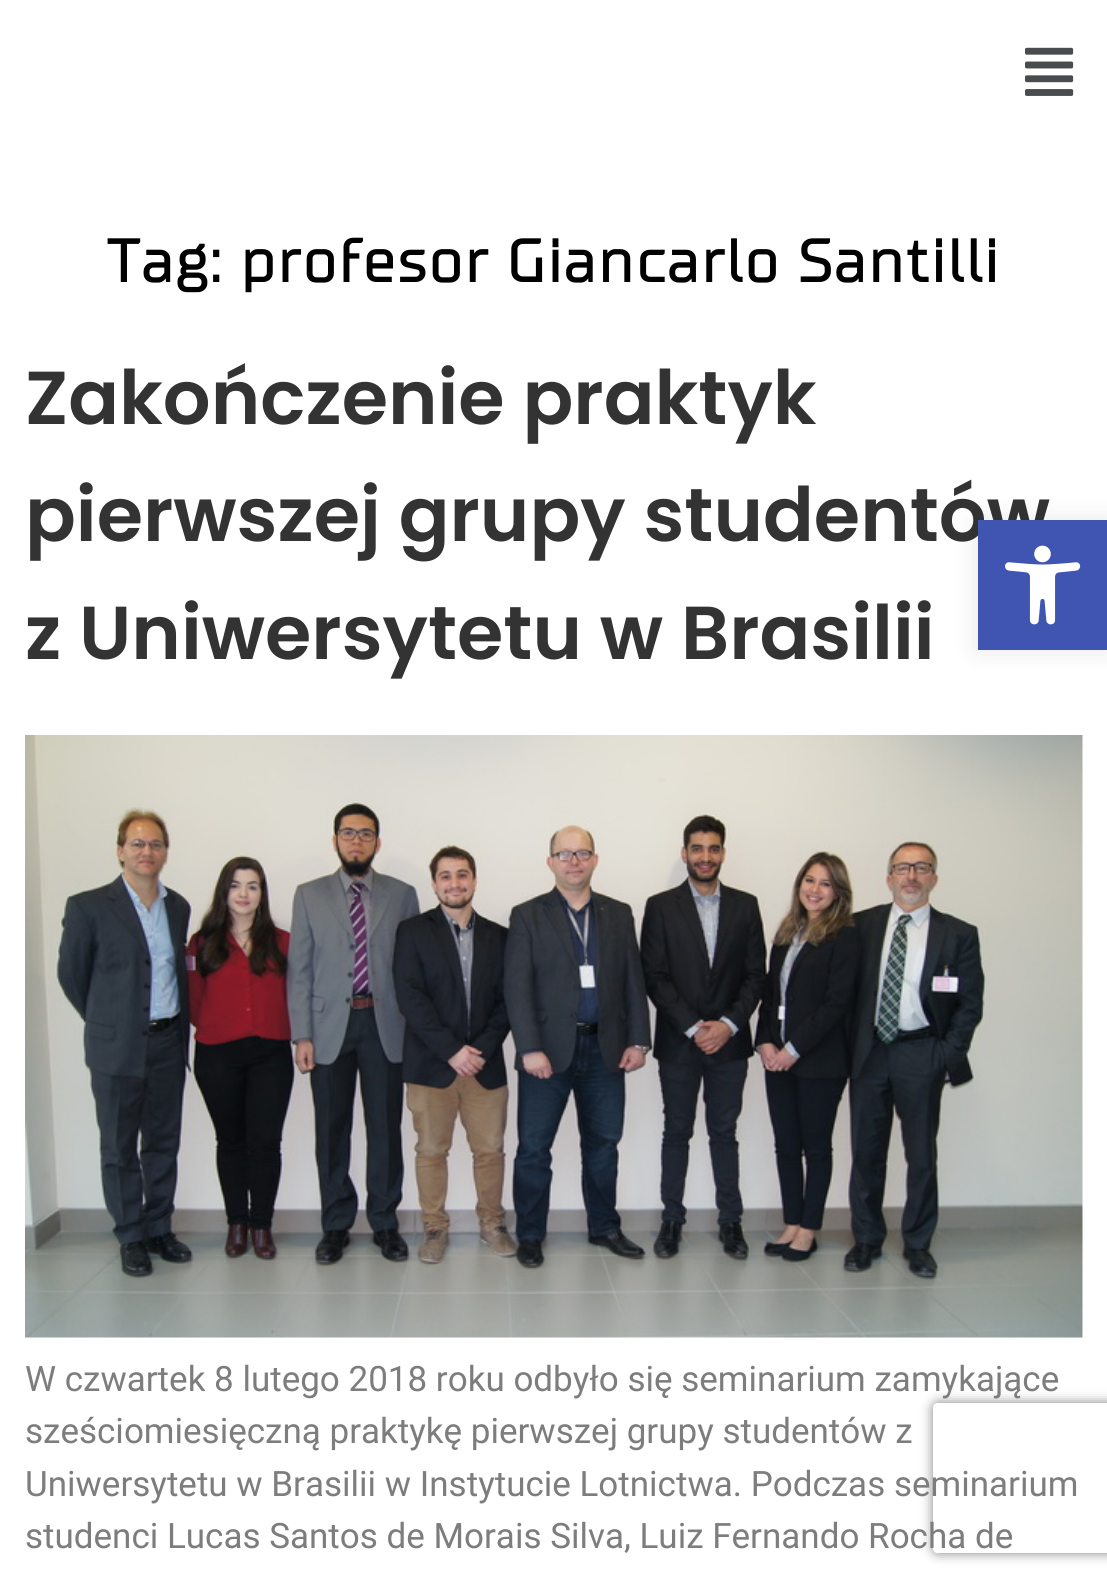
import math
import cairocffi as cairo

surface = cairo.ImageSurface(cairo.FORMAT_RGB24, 1107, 1587)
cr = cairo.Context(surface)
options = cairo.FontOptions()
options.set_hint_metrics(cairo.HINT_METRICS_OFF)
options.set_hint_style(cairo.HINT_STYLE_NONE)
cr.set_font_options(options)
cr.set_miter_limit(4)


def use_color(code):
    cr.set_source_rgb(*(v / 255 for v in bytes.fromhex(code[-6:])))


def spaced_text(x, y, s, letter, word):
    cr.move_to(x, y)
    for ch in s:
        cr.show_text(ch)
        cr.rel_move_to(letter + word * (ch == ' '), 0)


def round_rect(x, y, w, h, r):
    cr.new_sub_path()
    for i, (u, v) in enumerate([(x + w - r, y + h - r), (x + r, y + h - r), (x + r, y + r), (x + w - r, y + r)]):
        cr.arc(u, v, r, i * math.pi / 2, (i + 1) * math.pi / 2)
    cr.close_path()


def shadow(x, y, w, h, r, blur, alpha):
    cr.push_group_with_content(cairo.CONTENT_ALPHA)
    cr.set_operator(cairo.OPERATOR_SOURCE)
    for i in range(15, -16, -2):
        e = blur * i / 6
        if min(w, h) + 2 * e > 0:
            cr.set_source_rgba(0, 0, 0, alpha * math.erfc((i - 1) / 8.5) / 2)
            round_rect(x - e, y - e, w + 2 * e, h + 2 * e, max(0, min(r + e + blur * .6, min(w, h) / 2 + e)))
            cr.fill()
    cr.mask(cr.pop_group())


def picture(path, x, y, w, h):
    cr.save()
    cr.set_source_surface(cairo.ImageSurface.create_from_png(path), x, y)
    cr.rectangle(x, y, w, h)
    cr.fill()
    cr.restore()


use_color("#ffffff")
cr.paint()
picture("img1.png", 1025, 47, 49, 49)
cr.select_font_face("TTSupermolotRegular", cairo.FONT_SLANT_NORMAL, cairo.FONT_WEIGHT_BOLD)
cr.set_font_size(60)
use_color("#000000")
spaced_text(107, 282, "Tag: profesor Giancarlo Santilli", 2.5, 0)
cr.select_font_face("Poppins SemiBold")
cr.set_font_size(75)
use_color("#333333")
cr.move_to(25, 424)
cr.show_text("Zakończenie praktyk")
cr.move_to(25, 541)
cr.show_text("pierwszej grupy studentów")
cr.move_to(25, 659)
cr.show_text("z Uniwersytetu w Brasilii")
picture("img2.png", 25, 735, 1058, 603)
cr.select_font_face("Roboto")
cr.set_font_size(35)
use_color("#7e7d7d")
cr.move_to(25, 1391)
cr.show_text("W czwartek 8 lutego 2018 roku odbyło się seminarium zamykające")
cr.move_to(25, 1443)
cr.show_text("sześciomiesięczną praktykę pierwszej grupy studentów z")
cr.move_to(25, 1496)
cr.show_text("Uniwersytetu w Brasilii w Instytucie Lotnictwa. Podczas seminarium")
cr.move_to(25, 1548)
cr.show_text("studenci Lucas Santos de Morais Silva, Luiz Fernando Rocha de")
use_color("#000000")
shadow(978, 520, 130, 130, 0, 12.5, 0.1)
use_color("#4054b2")
cr.rectangle(978, 520, 129, 130)
cr.fill()
picture("img3.png", 1005, 545, 76, 80)
cr.save()
cr.set_fill_rule(cairo.FILL_RULE_EVEN_ODD)
cr.new_path()
cr.move_to(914, 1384)
cr.line_to(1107, 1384)
cr.line_to(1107, 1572)
cr.line_to(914, 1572)
cr.close_path()
cr.move_to(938, 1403)
cr.line_to(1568, 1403)
cr.curve_to(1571, 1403, 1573, 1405, 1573, 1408)
cr.line_to(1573, 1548)
cr.curve_to(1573, 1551, 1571, 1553, 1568, 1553)
cr.line_to(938, 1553)
cr.curve_to(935, 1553, 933, 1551, 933, 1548)
cr.line_to(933, 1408)
cr.curve_to(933, 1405, 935, 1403, 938, 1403)
cr.close_path()
cr.clip()
use_color("#808080")
shadow(933, 1403, 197, 150, 5, 6, 1)
cr.restore()
surface.write_to_png("result.png")
